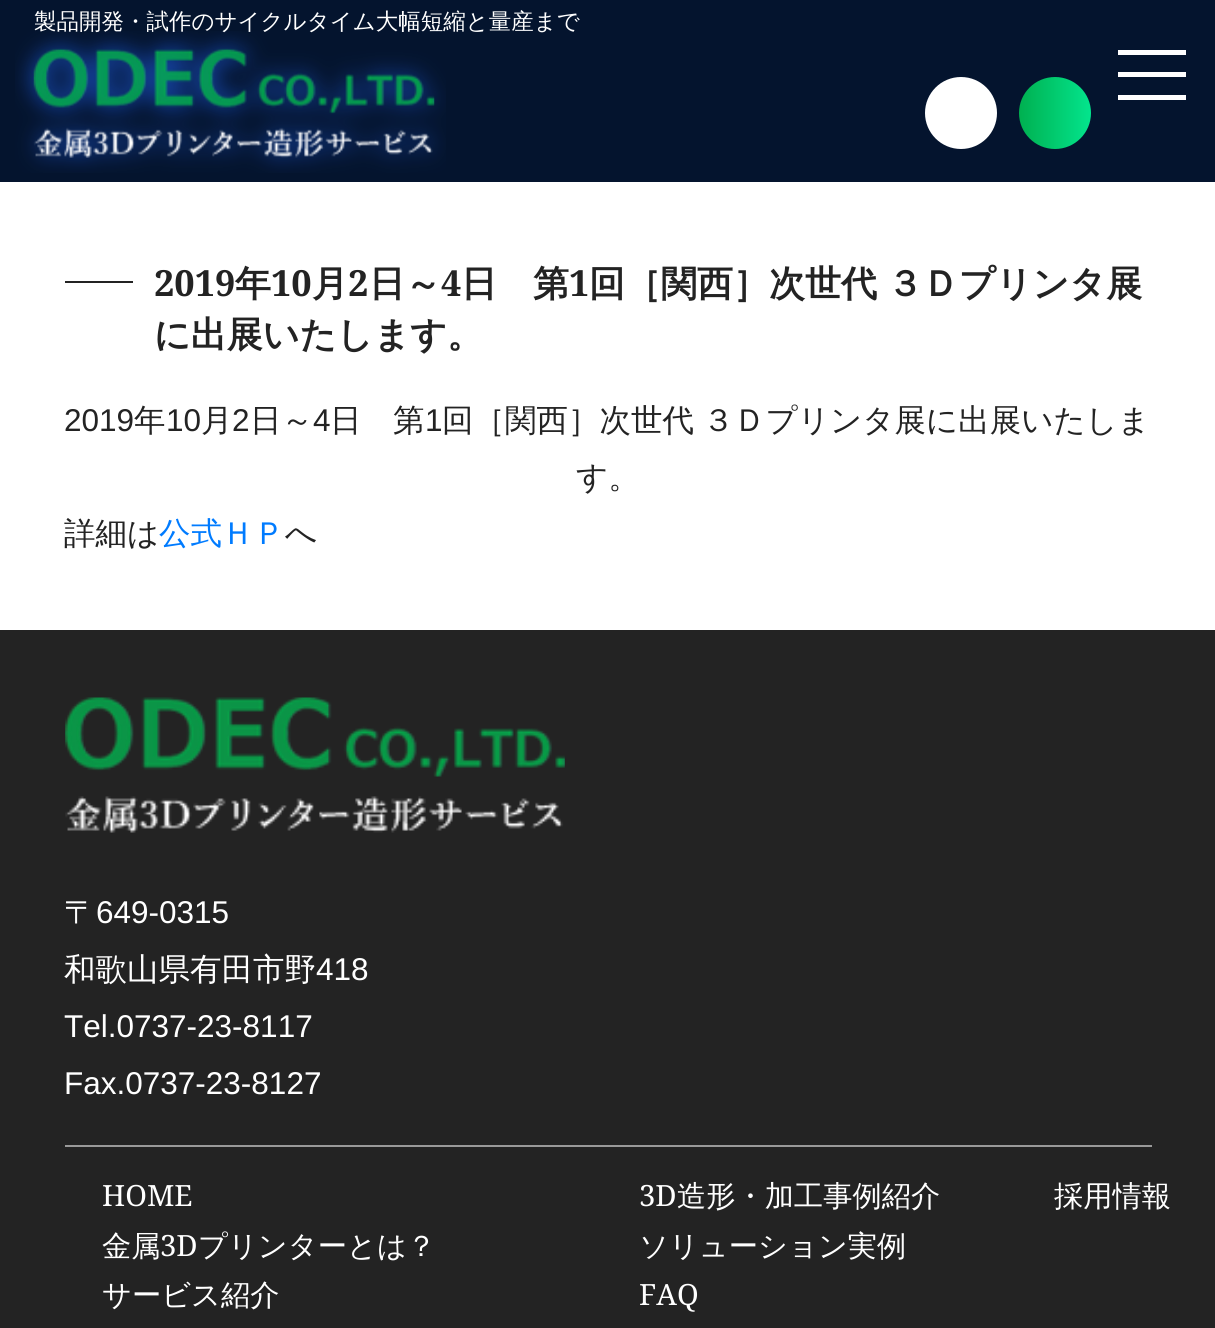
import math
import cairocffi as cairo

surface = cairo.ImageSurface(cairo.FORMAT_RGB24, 1215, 1328)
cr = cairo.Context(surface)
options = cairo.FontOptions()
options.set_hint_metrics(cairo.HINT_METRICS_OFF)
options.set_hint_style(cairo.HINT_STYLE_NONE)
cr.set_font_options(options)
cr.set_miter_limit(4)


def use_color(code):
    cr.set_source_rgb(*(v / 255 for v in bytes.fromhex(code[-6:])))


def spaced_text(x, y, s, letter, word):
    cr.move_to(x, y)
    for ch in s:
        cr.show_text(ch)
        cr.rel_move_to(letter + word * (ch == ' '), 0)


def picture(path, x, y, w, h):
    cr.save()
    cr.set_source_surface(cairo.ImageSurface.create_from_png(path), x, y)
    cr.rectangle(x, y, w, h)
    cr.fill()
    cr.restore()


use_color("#ffffff")
cr.paint()
use_color("#04142e")
cr.rectangle(0, 0, 1215, 182)
cr.fill()
cr.select_font_face("WenQuanYi Zen Hei Medium")
cr.set_font_size(22.5)
use_color("#ffffff")
cr.move_to(34, 29)
cr.show_text("製品開発・試作のサイクルタイム大幅短縮と量産まで")
picture("img1.png", 15, 31, 431, 142)
cr.arc(961, 113, 36, 0, 2 * math.pi)
cr.fill()
gradient = cairo.LinearGradient(1019, 113, 1091, 113)
gradient.add_color_stop_rgba(0, 0, 0.69, 0.314, 1)
gradient.add_color_stop_rgba(1, 0.012, 0.898, 0.553, 1)
cr.set_source(gradient)
cr.arc(1055, 113, 36, 0, 2 * math.pi)
cr.fill()
use_color("#ffffff")
cr.rectangle(1118, 72, 68, 5)
cr.fill()
cr.rectangle(1118, 50, 68, 5)
cr.fill()
cr.rectangle(1118, 95, 68, 5)
cr.fill()
use_color("#232323")
cr.rectangle(65, 281, 68, 2)
cr.fill()
cr.select_font_face("Noto Serif", cairo.FONT_SLANT_NORMAL, cairo.FONT_WEIGHT_BOLD)
cr.set_font_size(36)
cr.move_to(154, 296)
cr.show_text("2019")
cr.select_font_face("WenQuanYi Zen Hei", cairo.FONT_SLANT_NORMAL, cairo.FONT_WEIGHT_BOLD)
cr.move_to(235, 296)
cr.show_text("年")
cr.select_font_face("Noto Serif", cairo.FONT_SLANT_NORMAL, cairo.FONT_WEIGHT_BOLD)
cr.move_to(271, 296)
cr.show_text("10")
cr.select_font_face("WenQuanYi Zen Hei", cairo.FONT_SLANT_NORMAL, cairo.FONT_WEIGHT_BOLD)
cr.move_to(312, 296)
cr.show_text("月")
cr.select_font_face("Noto Serif", cairo.FONT_SLANT_NORMAL, cairo.FONT_WEIGHT_BOLD)
cr.move_to(348, 296)
cr.show_text("2")
cr.select_font_face("WenQuanYi Zen Hei", cairo.FONT_SLANT_NORMAL, cairo.FONT_WEIGHT_BOLD)
cr.move_to(369, 296)
cr.show_text("日～")
cr.select_font_face("Noto Serif", cairo.FONT_SLANT_NORMAL, cairo.FONT_WEIGHT_BOLD)
cr.move_to(441, 296)
cr.show_text("4")
cr.select_font_face("WenQuanYi Zen Hei", cairo.FONT_SLANT_NORMAL, cairo.FONT_WEIGHT_BOLD)
cr.move_to(461, 296)
cr.show_text("日　第")
cr.select_font_face("Noto Serif", cairo.FONT_SLANT_NORMAL, cairo.FONT_WEIGHT_BOLD)
cr.move_to(569, 296)
cr.show_text("1")
cr.select_font_face("WenQuanYi Zen Hei", cairo.FONT_SLANT_NORMAL, cairo.FONT_WEIGHT_BOLD)
spaced_text(589, 296, "回［関西］次世代 ３Ｄプリンタ展", 0, -1)
cr.move_to(154, 347)
cr.show_text("に出展いたします。")
cr.select_font_face("Liberation Sans")
cr.set_font_size(31.5)
cr.move_to(64, 431)
cr.show_text("2019")
cr.select_font_face("WenQuanYi Zen Hei Medium")
cr.move_to(134, 431)
cr.show_text("年")
cr.select_font_face("Liberation Sans")
cr.move_to(166, 431)
cr.show_text("10")
cr.select_font_face("WenQuanYi Zen Hei Medium")
cr.move_to(201, 431)
cr.show_text("月")
cr.select_font_face("Liberation Sans")
cr.move_to(232, 431)
cr.show_text("2")
cr.select_font_face("WenQuanYi Zen Hei Medium")
cr.move_to(250, 431)
cr.show_text("日～")
cr.select_font_face("Liberation Sans")
cr.move_to(313, 431)
cr.show_text("4")
cr.select_font_face("WenQuanYi Zen Hei Medium")
cr.move_to(330, 431)
cr.show_text("日　第")
cr.select_font_face("Liberation Sans")
cr.move_to(425, 431)
cr.show_text("1")
cr.select_font_face("WenQuanYi Zen Hei Medium")
spaced_text(442, 431, "回［関西］次世代 ３Ｄプリンタ展に出展いたしま", 0, -1)
cr.move_to(576, 488)
cr.show_text("す。")
cr.move_to(64, 544)
cr.show_text("詳細は")
use_color("#007bff")
cr.move_to(159, 544)
cr.show_text("公式ＨＰ")
use_color("#232323")
cr.move_to(285, 544)
cr.show_text("へ")
cr.rectangle(0, 630, 1215, 698)
cr.fill()
picture("img2.png", 65, 697, 500, 136)
use_color("#ffffff")
cr.move_to(64, 923)
cr.show_text("〒")
cr.select_font_face("Liberation Sans")
cr.move_to(96, 923)
cr.show_text("649-0315")
cr.select_font_face("WenQuanYi Zen Hei Medium")
cr.move_to(64, 980)
cr.show_text("和歌山県有田市野")
cr.select_font_face("Liberation Sans")
cr.move_to(316, 980)
cr.show_text("418")
cr.move_to(64, 1037)
cr.show_text("Tel.0737-23-8117")
cr.move_to(64, 1094)
cr.show_text("Fax.0737-23-8127")
use_color("#999999")
cr.rectangle(65, 1145, 1087, 2)
cr.fill()
cr.select_font_face("Noto Serif")
cr.set_font_size(29.25)
use_color("#ffffff")
cr.move_to(102, 1206)
cr.show_text("HOME")
cr.move_to(639, 1206)
cr.show_text("3D")
cr.select_font_face("WenQuanYi Zen Hei Medium")
cr.move_to(677, 1206)
cr.show_text("造形・加工事例紹介")
cr.move_to(1054, 1206)
cr.show_text("採用情報")
cr.move_to(102, 1256)
cr.show_text("金属")
cr.select_font_face("Noto Serif")
cr.move_to(160, 1256)
cr.show_text("3D")
cr.select_font_face("WenQuanYi Zen Hei Medium")
cr.move_to(198, 1256)
cr.show_text("プリンターとは？")
cr.move_to(639, 1256)
cr.show_text("ソリューション実例")
cr.move_to(102, 1305)
cr.show_text("サービス紹介")
cr.select_font_face("Noto Serif")
cr.move_to(639, 1305)
cr.show_text("FAQ")
surface.write_to_png("result.png")
